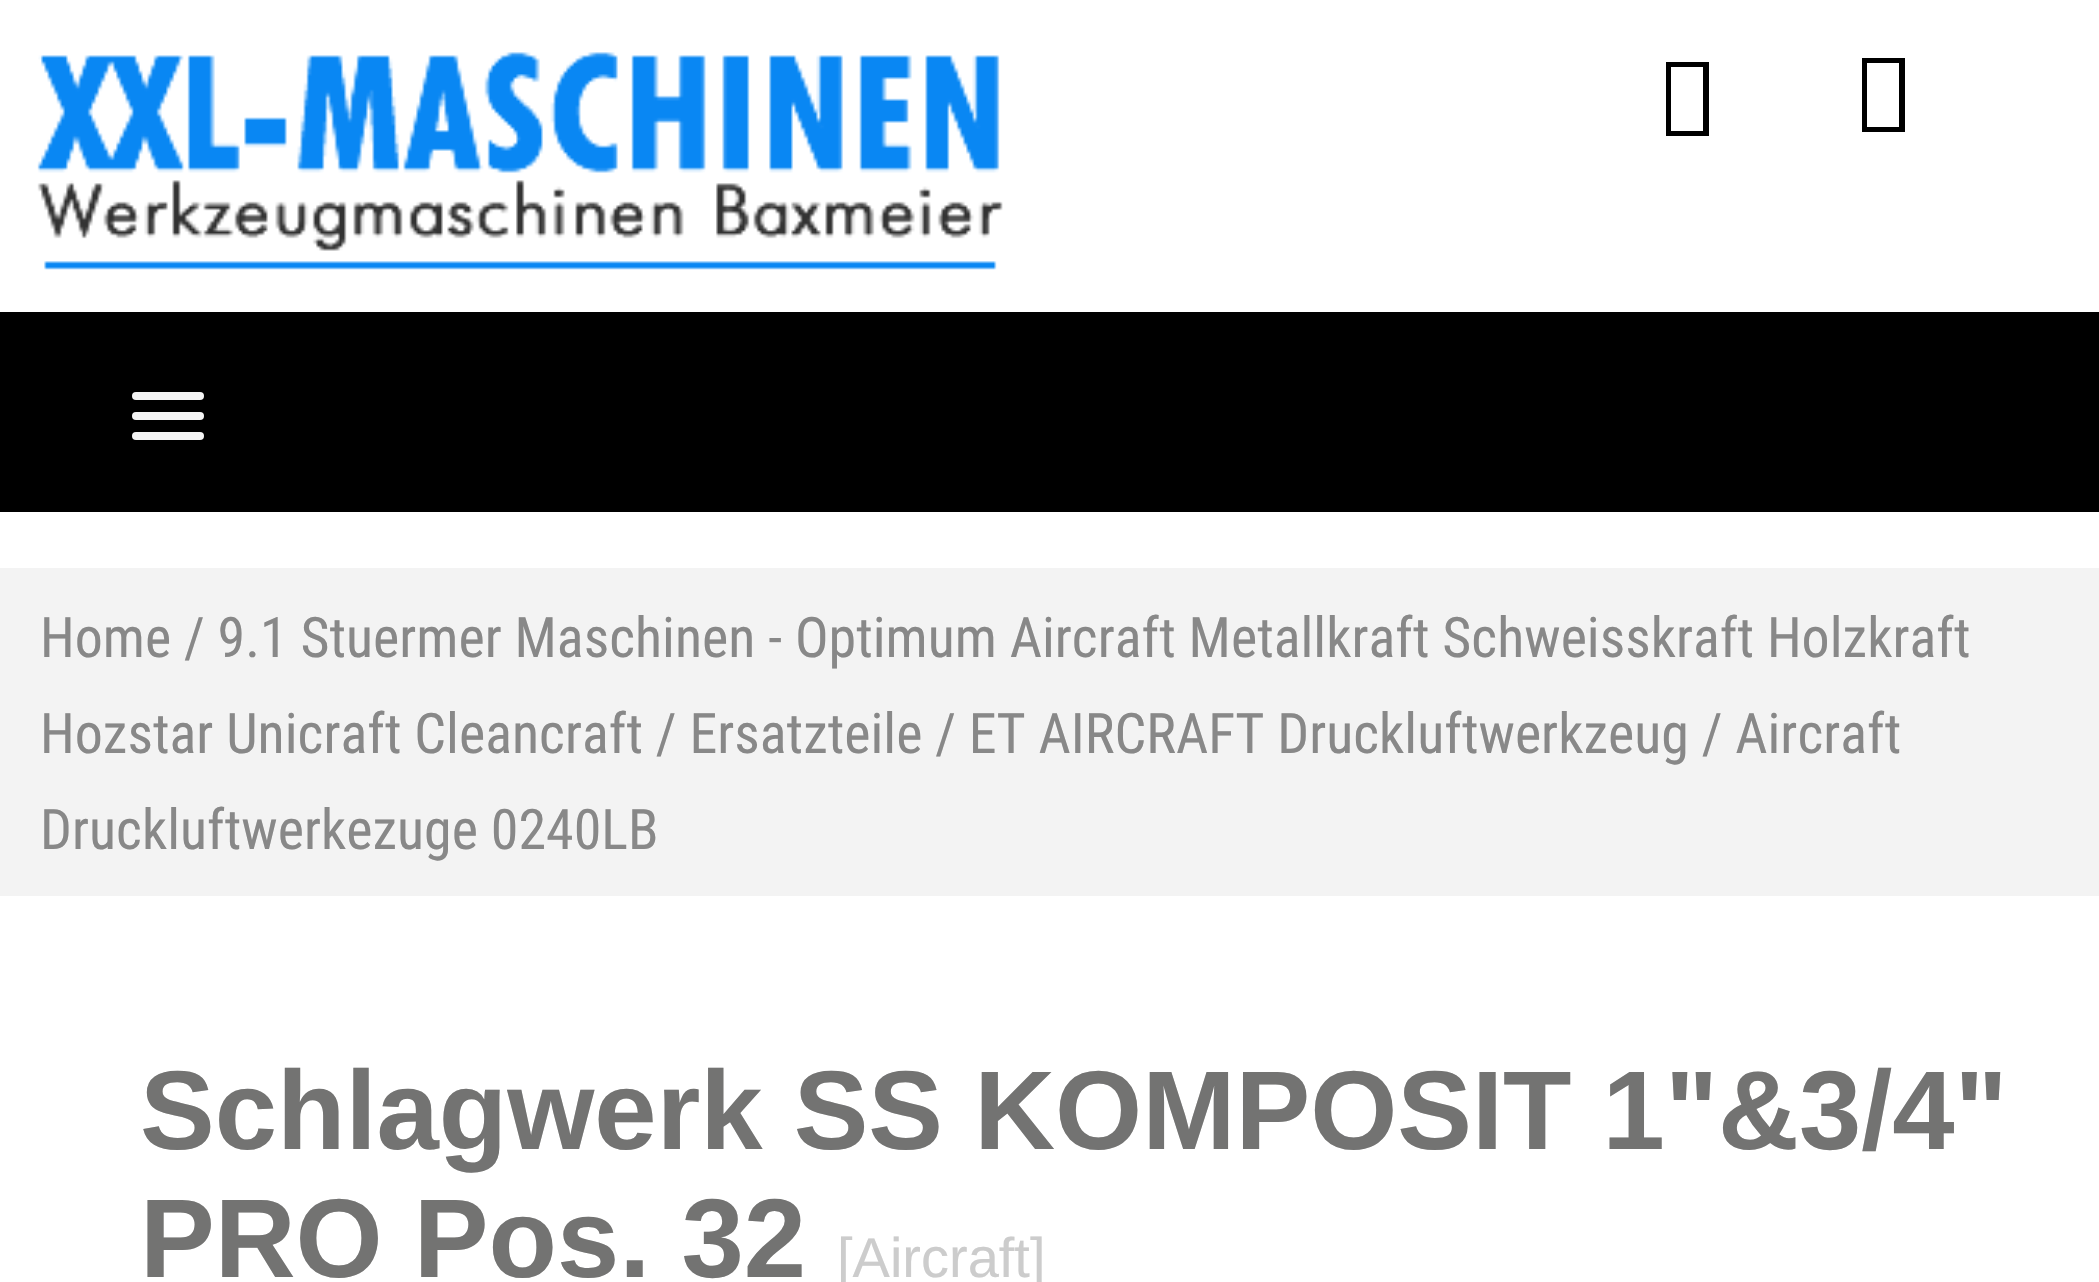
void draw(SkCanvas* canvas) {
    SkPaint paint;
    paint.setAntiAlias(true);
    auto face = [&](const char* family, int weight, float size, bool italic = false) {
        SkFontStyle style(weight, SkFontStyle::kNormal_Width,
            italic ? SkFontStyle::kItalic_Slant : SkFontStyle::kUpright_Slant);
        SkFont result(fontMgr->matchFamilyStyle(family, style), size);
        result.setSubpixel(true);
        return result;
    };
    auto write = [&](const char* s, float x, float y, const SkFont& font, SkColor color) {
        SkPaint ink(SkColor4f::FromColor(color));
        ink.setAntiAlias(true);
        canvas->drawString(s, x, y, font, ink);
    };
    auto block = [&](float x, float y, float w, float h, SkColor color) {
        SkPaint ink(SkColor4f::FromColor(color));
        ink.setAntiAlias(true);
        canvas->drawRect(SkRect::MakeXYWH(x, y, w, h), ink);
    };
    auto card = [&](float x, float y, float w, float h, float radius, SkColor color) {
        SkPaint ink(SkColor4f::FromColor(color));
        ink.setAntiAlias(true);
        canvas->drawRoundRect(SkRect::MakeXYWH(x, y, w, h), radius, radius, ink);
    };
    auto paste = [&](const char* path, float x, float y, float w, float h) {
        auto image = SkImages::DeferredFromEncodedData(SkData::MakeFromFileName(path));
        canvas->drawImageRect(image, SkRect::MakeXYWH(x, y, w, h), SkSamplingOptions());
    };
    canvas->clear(SK_ColorWHITE);
    paste("pic1.png", 37, 52, 966, 218);
    paint.setColor(SK_ColorBLACK);
    canvas->drawPath(SkPathBuilder().moveTo(1666, 136).lineTo(1666, 62).lineTo(1709, 62).lineTo(1709, 136).close().moveTo(1671, 131).lineTo(1703, 131).lineTo(1703, 67).lineTo(1671, 67).close().detach(), paint);
    canvas->drawPath(SkPathBuilder().moveTo(1862, 132).lineTo(1862, 58).lineTo(1905, 58).lineTo(1905, 132).close().moveTo(1867, 127).lineTo(1899, 127).lineTo(1899, 63).lineTo(1867, 63).close().detach(), paint);
    block(0, 312, 2099, 200, SK_ColorBLACK);
    card(132, 392, 72, 8, 4, SkColorSetRGB(245, 245, 245));
    card(132, 412, 72, 8, 4, SkColorSetRGB(245, 245, 245));
    card(132, 432, 72, 8, 4, SkColorSetRGB(245, 245, 245));
    block(0, 568, 2099, 328, SkColorSetRGB(243, 243, 243));
    auto kFont1 = face("Roboto Condensed", 400, 56);
    write("Home / 9.1 Stuermer Maschinen - Optimum Aircraft Metallkraft Schweisskraft Holzkraft", 40, 657, kFont1, SkColorSetRGB(136, 136, 136));
    write("Hozstar Unicraft Cleancraft / Ersatzteile / ET AIRCRAFT Druckluftwerkzeug / Aircraft", 40, 753, kFont1, SkColorSetRGB(136, 136, 136));
    write("Druckluftwerkezuge 0240LB", 40, 849, kFont1, SkColorSetRGB(136, 136, 136));
    auto kFont2 = face("Liberation Sans", 700, 112);
    write("Schlagwerk SS KOMPOSIT 1\"&3/4\"", 140, 1149, kFont2, SkColorSetRGB(115, 115, 114));
    write("PRO Pos. 32", 140, 1277, kFont2, SkColorSetRGB(115, 115, 114));
    auto kFont3 = face("Liberation Sans", 400, 56);
    write("[Aircraft]", 837, 1277, kFont3, SkColorSetRGB(204, 204, 204));
}
